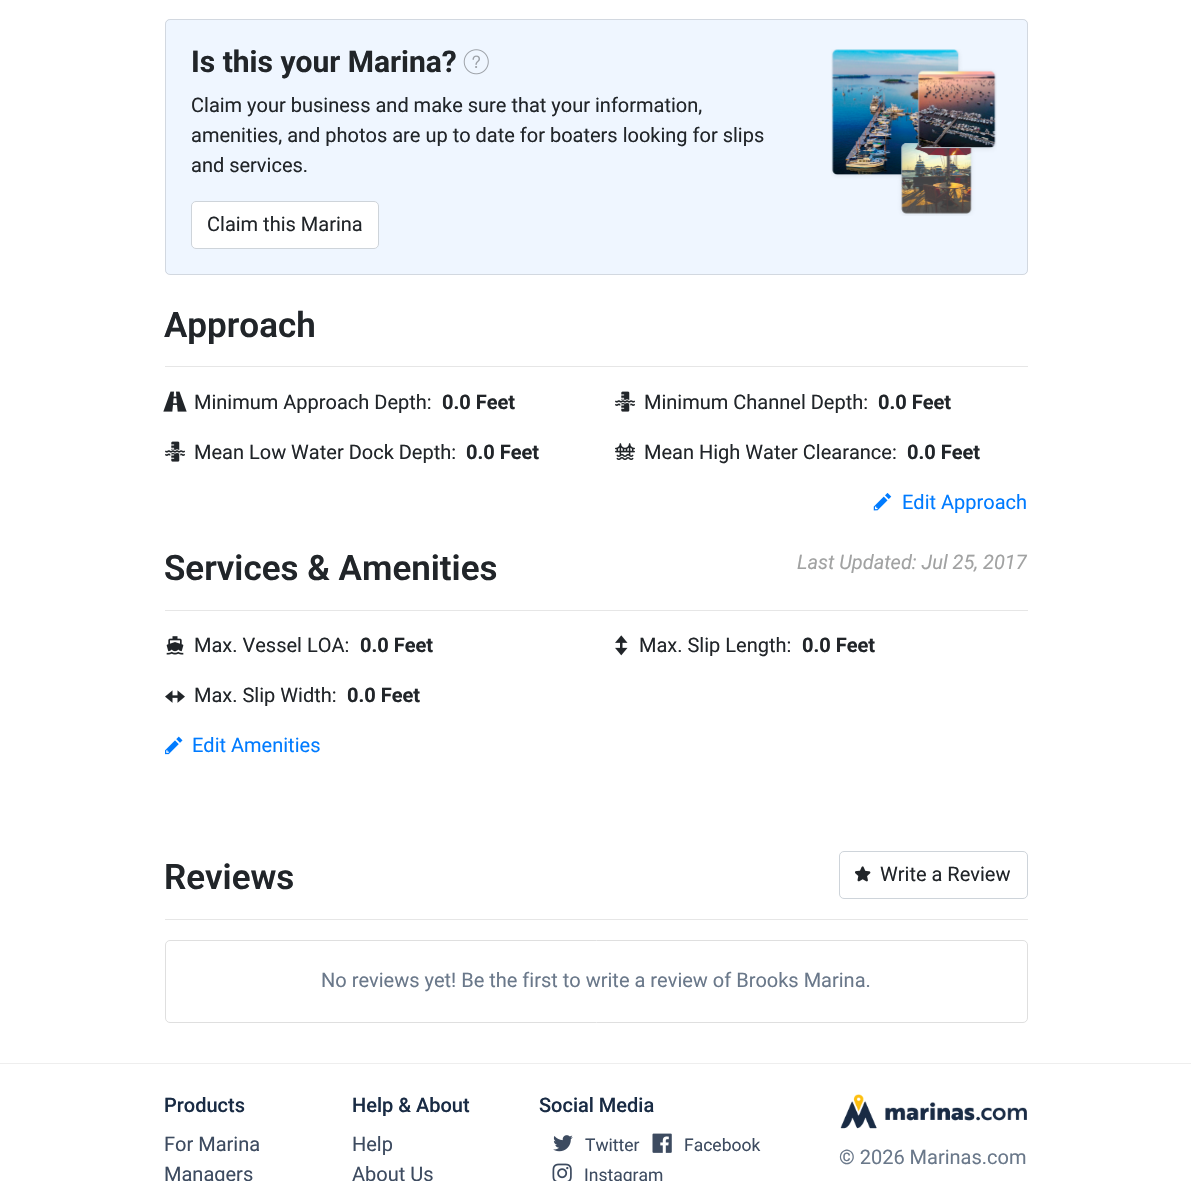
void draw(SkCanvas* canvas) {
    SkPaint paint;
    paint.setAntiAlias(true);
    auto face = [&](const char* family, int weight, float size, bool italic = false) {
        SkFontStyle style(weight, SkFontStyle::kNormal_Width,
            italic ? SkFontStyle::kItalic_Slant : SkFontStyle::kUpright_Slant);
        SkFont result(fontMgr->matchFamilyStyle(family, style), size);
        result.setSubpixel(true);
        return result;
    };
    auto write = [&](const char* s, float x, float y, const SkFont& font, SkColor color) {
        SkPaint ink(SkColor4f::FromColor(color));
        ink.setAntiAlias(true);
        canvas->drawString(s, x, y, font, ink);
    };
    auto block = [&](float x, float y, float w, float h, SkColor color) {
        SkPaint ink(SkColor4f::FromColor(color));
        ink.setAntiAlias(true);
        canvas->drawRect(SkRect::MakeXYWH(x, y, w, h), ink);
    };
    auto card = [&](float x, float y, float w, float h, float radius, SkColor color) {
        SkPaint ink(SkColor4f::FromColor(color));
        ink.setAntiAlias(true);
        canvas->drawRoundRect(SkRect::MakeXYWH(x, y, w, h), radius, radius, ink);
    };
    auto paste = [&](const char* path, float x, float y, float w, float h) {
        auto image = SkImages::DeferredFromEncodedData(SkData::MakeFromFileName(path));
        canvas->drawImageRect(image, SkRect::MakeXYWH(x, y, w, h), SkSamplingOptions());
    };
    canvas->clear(SK_ColorWHITE);
    card(165, 19, 863, 256, 5, SkColorSetRGB(239, 246, 255));
    paint.setStyle(SkPaint::kStroke_Style);
    paint.setStrokeWidth(1);
    paint.setColor(SkColorSetARGB(31, 0, 0, 0));
    canvas->drawRoundRect(SkRect::MakeXYWH(165.5f, 19.5f, 862, 255), 4.5f, 4.5f, paint);
    auto kFont1 = face("Roboto", 700, 30);
    write("Is this your Marina?", 191, 72, kFont1, SkColorSetRGB(33, 37, 41));
    paste("pic1.png", 463, 49, 26, 26);
    auto kFont2 = face("Roboto", 400, 20);
    write("Claim your business and make sure that your information,", 191, 112, kFont2, SkColorSetRGB(33, 37, 41));
    write("amenities, and photos are up to date for boaters looking for slips", 191, 142, kFont2, SkColorSetRGB(33, 37, 41));
    write("and services.", 191, 172, kFont2, SkColorSetRGB(33, 37, 41));
    paint.setStyle(SkPaint::kFill_Style);
    paint.setColor(SK_ColorWHITE);
    canvas->drawRoundRect(SkRect::MakeXYWH(191.5f, 201.5f, 187, 47), 4.5f, 4.5f, paint);
    paint.setStyle(SkPaint::kStroke_Style);
    paint.setColor(SkColorSetRGB(206, 212, 218));
    canvas->drawRoundRect(SkRect::MakeXYWH(191.5f, 201.5f, 187, 47), 4.5f, 4.5f, paint);
    write("Claim this Marina", 207, 231, kFont2, SkColorSetRGB(33, 37, 41));
    paste("pic2.png", 831, 49, 166, 167);
    auto kFont3 = face("Roboto", 600, 35);
    write("Approach", 164, 337, kFont3, SkColorSetRGB(33, 37, 41));
    block(165, 366, 863, 1, SkColorSetRGB(230, 230, 230));
    paste("pic3.png", 163, 391, 24, 21);
    write("Minimum Approach Depth:", 194, 409, kFont2, SkColorSetRGB(33, 37, 41));
    auto kFont4 = face("Roboto", 700, 20);
    write("0.0 Feet", 442, 409, kFont4, SkColorSetRGB(33, 37, 41));
    paste("pic4.png", 615, 391, 20, 21);
    write("Minimum Channel Depth:", 644, 409, kFont2, SkColorSetRGB(33, 37, 41));
    write("0.0 Feet", 878, 409, kFont4, SkColorSetRGB(33, 37, 41));
    paste("pic4.png", 165, 441, 20, 21);
    write("Mean Low Water Dock Depth:", 194, 459, kFont2, SkColorSetRGB(33, 37, 41));
    write("0.0 Feet", 466, 459, kFont4, SkColorSetRGB(33, 37, 41));
    paste("pic5.png", 615, 443, 20, 17);
    write("Mean High Water Clearance:", 644, 459, kFont2, SkColorSetRGB(33, 37, 41));
    write("0.0 Feet", 907, 459, kFont4, SkColorSetRGB(33, 37, 41));
    paste("pic6.png", 873, 493, 19, 18);
    write("Edit Approach", 902, 509, kFont2, SkColorSetRGB(0, 123, 255));
    write("Services & Amenities", 164, 580, kFont3, SkColorSetRGB(33, 37, 41));
    auto kFont5 = face("Roboto", 400, 20, true);
    write("Last Updated: Jul 25, 2017", 797, 569, kFont5, SkColorSetRGB(161, 162, 162));
    block(165, 610, 863, 1, SkColorSetRGB(230, 230, 230));
    paste("pic7.png", 166, 636, 18, 19);
    write("Max. Vessel LOA:", 194, 652, kFont2, SkColorSetRGB(33, 37, 41));
    write("0.0 Feet", 360, 652, kFont4, SkColorSetRGB(33, 37, 41));
    paste("pic8.png", 615, 635, 13, 21);
    write("Max. Slip Length:", 639, 652, kFont2, SkColorSetRGB(33, 37, 41));
    write("0.0 Feet", 802, 652, kFont4, SkColorSetRGB(33, 37, 41));
    paste("pic9.png", 165, 690, 20, 13);
    write("Max. Slip Width:", 194, 702, kFont2, SkColorSetRGB(33, 37, 41));
    write("0.0 Feet", 347, 702, kFont4, SkColorSetRGB(33, 37, 41));
    paste("pic10.png", 165, 736, 18, 19);
    write("Edit Amenities", 192, 752, kFont2, SkColorSetRGB(0, 123, 255));
    write("Reviews", 164, 889, kFont3, SkColorSetRGB(33, 37, 41));
    canvas->drawRoundRect(SkRect::MakeXYWH(839.5f, 851.5f, 188, 47), 4.5f, 4.5f, paint);
    paste("pic11.png", 855, 866, 16, 16);
    write("Write a Review", 880, 881, kFont2, SkColorSetRGB(33, 37, 41));
    block(165, 919, 863, 1, SkColorSetRGB(230, 230, 230));
    paint.setColor(SkColorSetRGB(223, 223, 223));
    canvas->drawRoundRect(SkRect::MakeXYWH(165.5f, 940.5f, 862, 82), 4.5f, 4.5f, paint);
    write("No reviews yet! Be the first to write a review of Brooks Marina.", 321, 987, kFont2, SkColorSetRGB(106, 120, 138));
    block(0, 1063, 1191, 1, SkColorSetRGB(238, 238, 238));
    auto kFont6 = face("Roboto", 500, 20);
    write("Products", 164, 1112, kFont6, SkColorSetRGB(25, 43, 68));
    write("For Marina", 164, 1151, kFont2, SkColorSetRGB(61, 75, 96));
    write("Managers", 164, 1181, kFont2, SkColorSetRGB(61, 75, 96));
    write("Help & About", 352, 1112, kFont6, SkColorSetRGB(25, 43, 68));
    write("Help", 352, 1151, kFont2, SkColorSetRGB(61, 75, 96));
    write("About Us", 352, 1181, kFont2, SkColorSetRGB(61, 75, 96));
    write("Social Media", 539, 1112, kFont6, SkColorSetRGB(25, 43, 68));
    paste("pic12.png", 553, 1135, 20, 17);
    auto kFont7 = face("Roboto", 400, 17.5f);
    write("Twitter", 585, 1151, kFont7, SkColorSetRGB(61, 75, 96));
    paste("pic13.png", 652, 1133, 20, 20);
    write("Facebook", 684, 1151, kFont7, SkColorSetRGB(61, 75, 96));
    paste("pic14.png", 552, 1163, 20, 18);
    write("Instagram", 584, 1181, kFont7, SkColorSetRGB(61, 75, 96));
    paste("pic15.png", 840, 1094, 187, 35);
    write("© 2026 Marinas.com", 839, 1164, kFont2, SkColorSetRGB(106, 120, 138));
}
